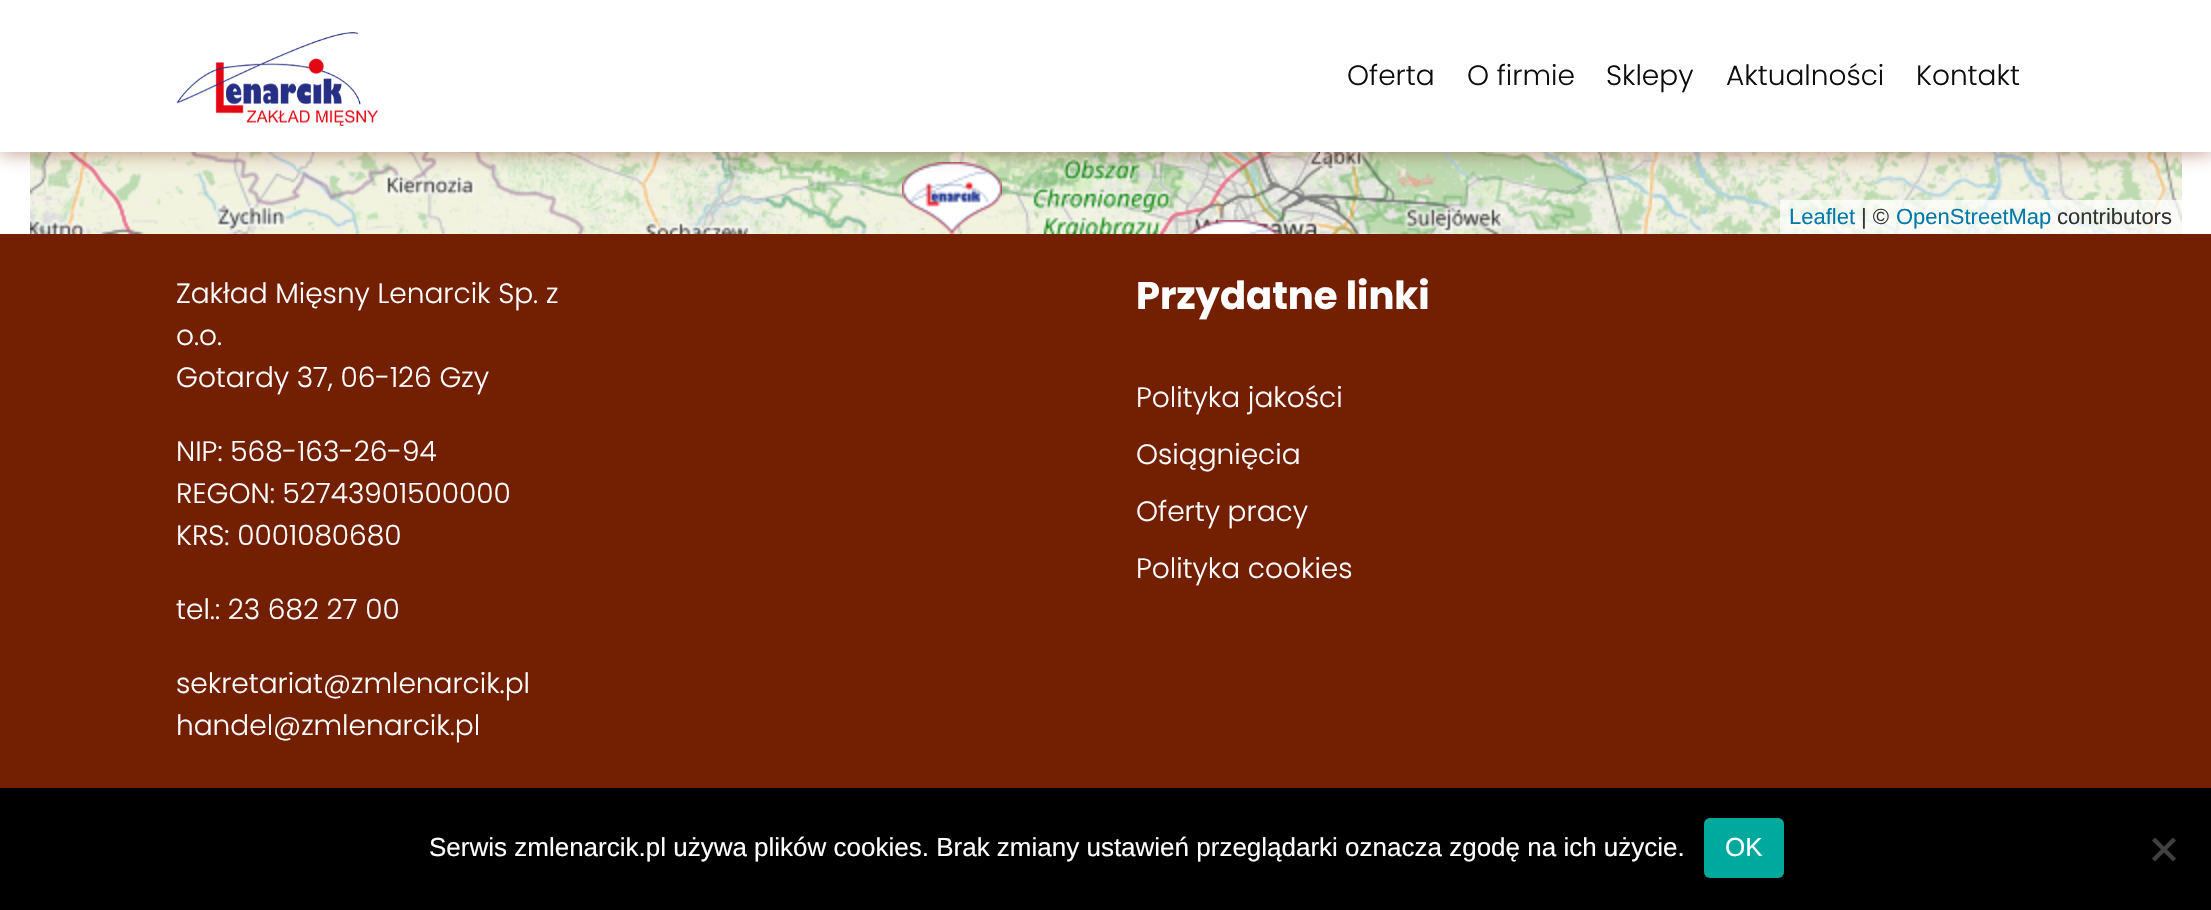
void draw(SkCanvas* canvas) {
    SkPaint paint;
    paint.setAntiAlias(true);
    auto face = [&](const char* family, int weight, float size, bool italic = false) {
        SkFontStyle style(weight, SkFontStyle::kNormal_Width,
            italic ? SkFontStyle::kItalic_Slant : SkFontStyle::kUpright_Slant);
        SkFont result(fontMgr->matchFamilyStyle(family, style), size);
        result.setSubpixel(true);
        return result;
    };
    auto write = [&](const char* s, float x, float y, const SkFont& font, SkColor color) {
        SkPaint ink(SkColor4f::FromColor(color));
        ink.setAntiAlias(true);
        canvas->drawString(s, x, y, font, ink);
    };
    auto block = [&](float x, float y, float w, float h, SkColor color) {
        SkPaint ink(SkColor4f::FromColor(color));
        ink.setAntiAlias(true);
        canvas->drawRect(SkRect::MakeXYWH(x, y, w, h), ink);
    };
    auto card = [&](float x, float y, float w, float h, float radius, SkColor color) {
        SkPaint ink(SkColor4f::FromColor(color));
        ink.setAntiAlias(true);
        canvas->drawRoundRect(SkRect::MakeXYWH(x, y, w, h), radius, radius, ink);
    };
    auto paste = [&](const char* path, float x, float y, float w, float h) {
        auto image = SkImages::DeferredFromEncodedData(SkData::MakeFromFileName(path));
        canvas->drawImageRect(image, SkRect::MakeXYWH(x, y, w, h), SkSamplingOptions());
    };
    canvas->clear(SK_ColorWHITE);
    paste("pic2.png", 30, 152, 266, 82);
    paste("pic3.png", 296, 152, 512, 82);
    paste("pic4.png", 808, 152, 512, 82);
    paste("pic5.png", 1320, 152, 512, 82);
    paste("pic6.png", 1832, 152, 350, 82);
    paste("pic7.png", 902, 162, 100, 72);
    paint.setColor(SkColorSetARGB(128, 115, 32, 2));
    paint.setMaskFilter(SkMaskFilter::MakeBlur(kNormal_SkBlurStyle, 10));
    canvas->drawRect(SkRect::MakeXYWH(0, 0, 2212, 152), paint);
    paint.setMaskFilter(nullptr);
    block(0, 0, 2211, 152, SK_ColorWHITE);
    paste("pic1.png", 176, 32, 202, 94);
    auto kFont1 = face("Poppins", 300, 28);
    write("Oferta", 1347, 85, kFont1, SkColorSetRGB(13, 13, 13));
    write("O firmie", 1467, 85, kFont1, SkColorSetRGB(13, 13, 13));
    write("Sklepy", 1606, 85, kFont1, SkColorSetRGB(13, 13, 13));
    write("Aktualności", 1726, 85, kFont1, SkColorSetRGB(13, 13, 13));
    write("Kontakt", 1916, 85, kFont1, SkColorSetRGB(13, 13, 13));
    paste("pic8.png", 1187, 220, 93, 14);
    block(1780, 200, 402, 34, SkColorSetARGB(179, 255, 255, 255));
    auto kFont2 = face("Liberation Sans", 400, 22);
    write("Leaflet", 1789, 224, kFont2, SkColorSetRGB(0, 120, 168));
    write("| ©", 1861, 224, kFont2, SkColorSetRGB(51, 51, 51));
    write("OpenStreetMap", 1896, 224, kFont2, SkColorSetRGB(0, 120, 168));
    write("contributors", 2057, 224, kFont2, SkColorSetRGB(51, 51, 51));
    block(0, 234, 2211, 554, SkColorSetRGB(115, 32, 2));
    write("Zakład Mięsny Lenarcik Sp. z", 176, 303, kFont1, SK_ColorWHITE);
    write("o.o.", 176, 345, kFont1, SK_ColorWHITE);
    write("Gotardy 37, 06-126 Gzy", 176, 387, kFont1, SK_ColorWHITE);
    write("NIP: 568-163-26-94", 176, 461, kFont1, SK_ColorWHITE);
    write("REGON: 52743901500000", 176, 503, kFont1, SK_ColorWHITE);
    write("KRS: 0001080680", 176, 545, kFont1, SK_ColorWHITE);
    write("tel.: 23 682 27 00", 176, 619, kFont1, SK_ColorWHITE);
    write("sekretariat@zmlenarcik.pl", 176, 693, kFont1, SK_ColorWHITE);
    write("handel@zmlenarcik.pl", 176, 735, kFont1, SK_ColorWHITE);
    auto kFont3 = face("Poppins", 700, 38.5f);
    write("Przydatne linki", 1136, 309, kFont3, SK_ColorWHITE);
    write("Polityka jakości", 1136, 407, kFont1, SK_ColorWHITE);
    write("Osiągnięcia", 1136, 464, kFont1, SK_ColorWHITE);
    write("Oferty pracy", 1136, 521, kFont1, SK_ColorWHITE);
    write("Polityka cookies", 1136, 578, kFont1, SK_ColorWHITE);
    block(0, 788, 2211, 122, SK_ColorBLACK);
    auto kFont4 = face("Liberation Sans", 400, 26);
    write("Serwis zmlenarcik.pl używa plików cookies. Brak zmiany ustawień przeglądarki oznacza zgodę na ich użycie.", 429, 856, kFont4, SK_ColorWHITE);
    card(1704, 818, 80, 60, 6, SkColorSetRGB(0, 169, 157));
    write("OK", 1725, 856, kFont4, SK_ColorWHITE);
    paint.setColor(SkColorSetRGB(64, 64, 64));
    canvas->drawPath(SkPathBuilder().moveTo(2173, 837.5f).lineTo(2176, 840.5f).lineTo(2155, 861.5f).lineTo(2152, 858.5f).close().detach(), paint);
    canvas->drawPath(SkPathBuilder().moveTo(2152, 840.5f).lineTo(2155, 837.5f).lineTo(2176, 858.5f).lineTo(2173, 861.5f).close().detach(), paint);
}
